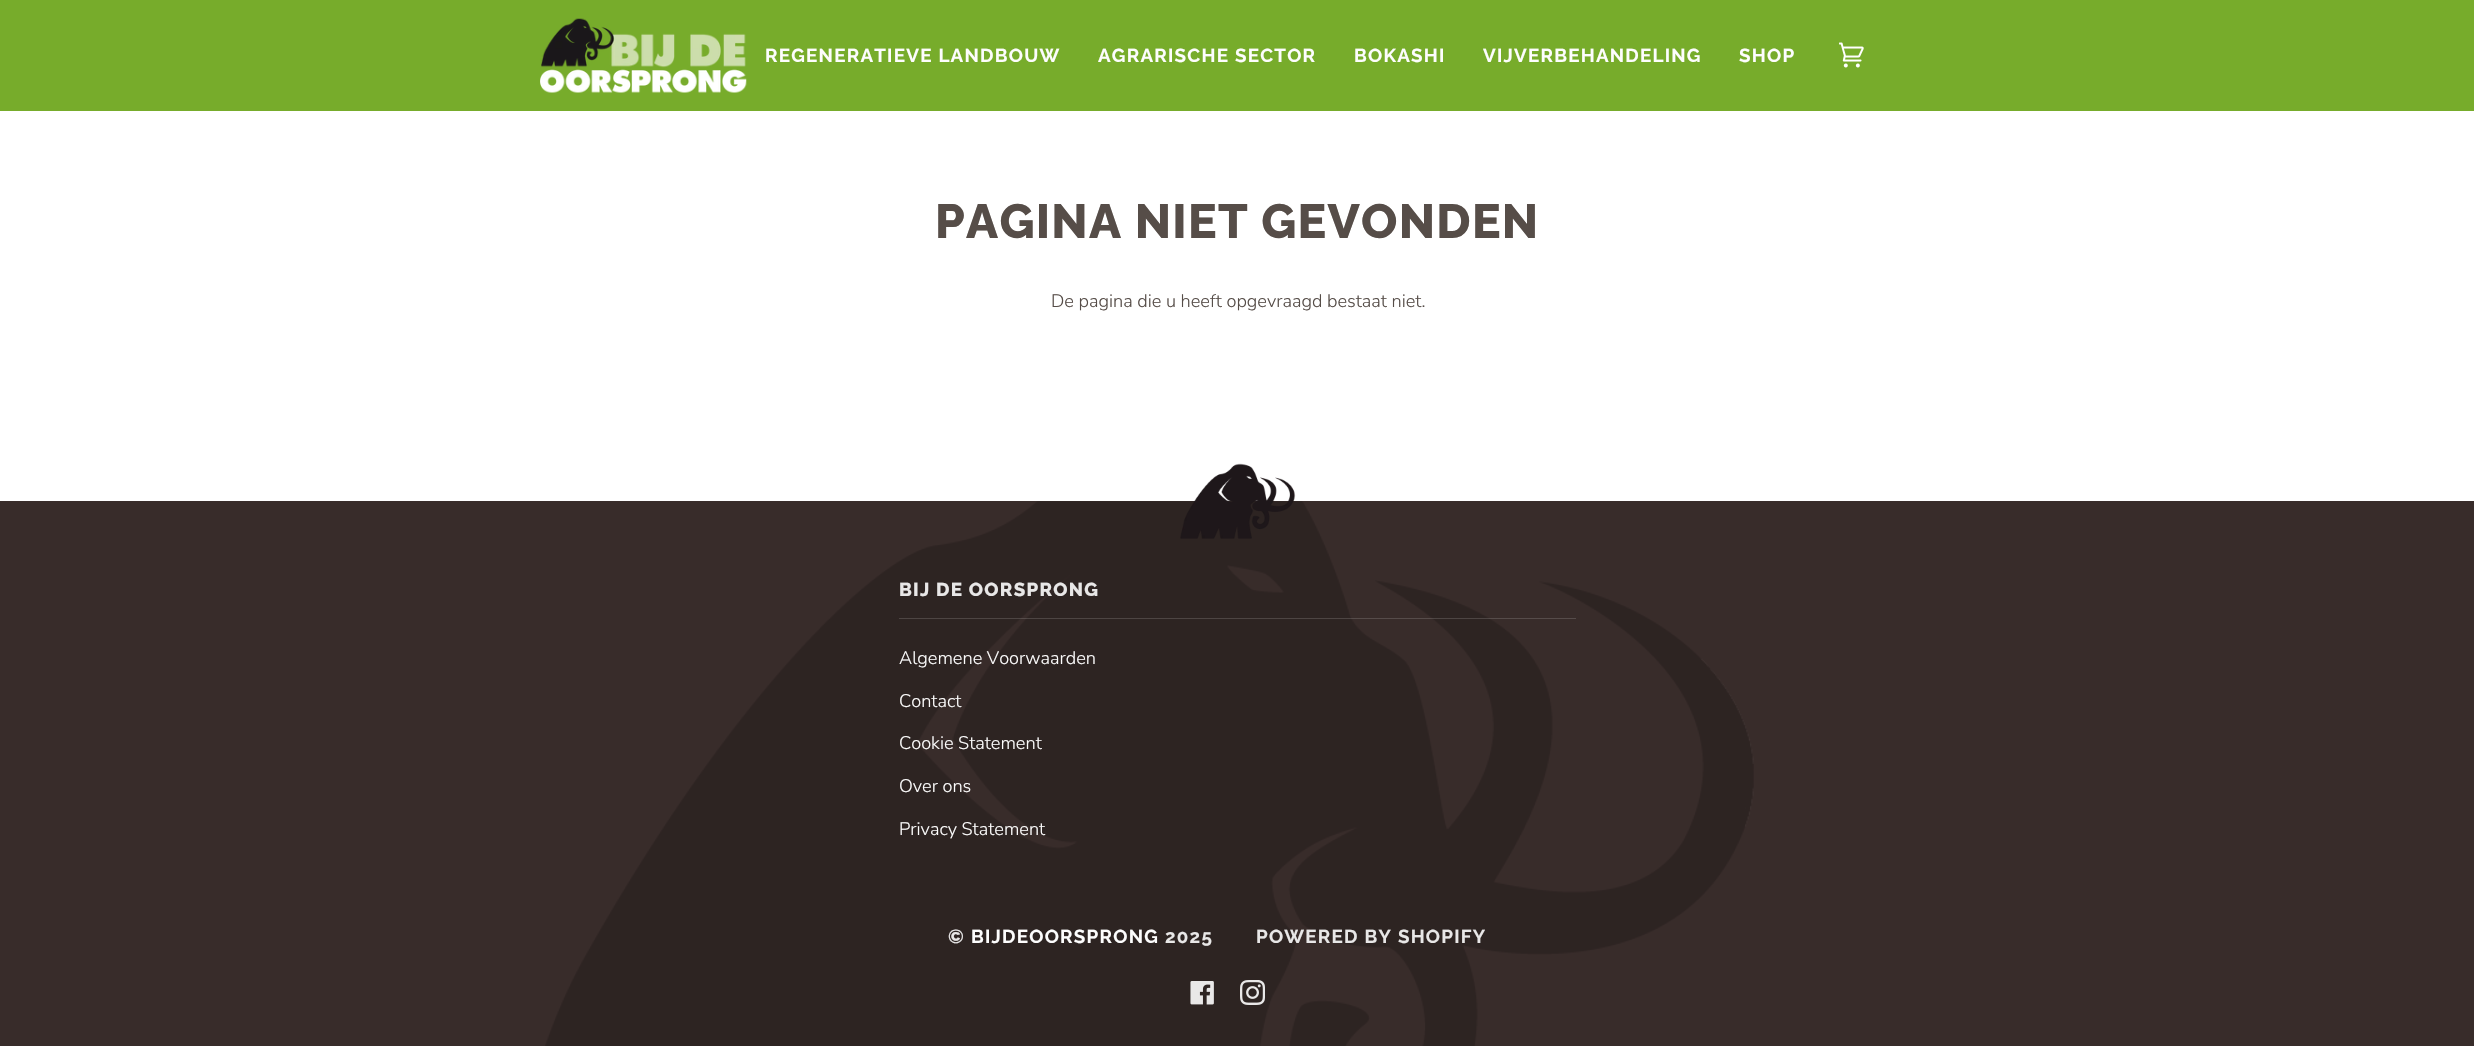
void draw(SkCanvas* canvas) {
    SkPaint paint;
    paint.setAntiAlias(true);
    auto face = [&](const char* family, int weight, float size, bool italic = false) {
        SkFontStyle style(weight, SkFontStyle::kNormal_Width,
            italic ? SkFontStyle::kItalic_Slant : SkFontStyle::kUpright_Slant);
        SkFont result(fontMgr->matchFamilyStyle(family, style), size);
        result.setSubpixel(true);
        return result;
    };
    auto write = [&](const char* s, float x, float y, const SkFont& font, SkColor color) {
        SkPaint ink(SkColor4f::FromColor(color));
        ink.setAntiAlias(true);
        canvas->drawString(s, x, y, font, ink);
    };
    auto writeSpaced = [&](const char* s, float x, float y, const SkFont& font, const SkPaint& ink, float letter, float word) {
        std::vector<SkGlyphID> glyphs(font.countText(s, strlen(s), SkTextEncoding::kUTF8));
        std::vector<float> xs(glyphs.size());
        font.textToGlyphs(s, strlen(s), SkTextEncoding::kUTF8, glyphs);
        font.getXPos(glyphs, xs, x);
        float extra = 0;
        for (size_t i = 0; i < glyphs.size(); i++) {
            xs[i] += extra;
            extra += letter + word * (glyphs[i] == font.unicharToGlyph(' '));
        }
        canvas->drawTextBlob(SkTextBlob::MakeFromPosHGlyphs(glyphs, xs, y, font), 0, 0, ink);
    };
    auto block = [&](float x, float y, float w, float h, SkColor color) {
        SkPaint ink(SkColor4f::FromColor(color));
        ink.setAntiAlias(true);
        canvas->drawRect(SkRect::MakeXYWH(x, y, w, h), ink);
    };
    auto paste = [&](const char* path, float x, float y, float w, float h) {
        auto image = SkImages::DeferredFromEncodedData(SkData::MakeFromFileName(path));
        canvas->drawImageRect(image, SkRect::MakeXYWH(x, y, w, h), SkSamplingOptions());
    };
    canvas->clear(SK_ColorWHITE);
    block(0, 0, 2474, 111, SkColorSetRGB(119, 172, 43));
    paste("pic1.png", 540, 18, 207, 75);
    auto kFont1 = face("Raleway", 700, 18.75f);
    paint.setColor(SkColorSetRGB(253, 253, 253));
    writeSpaced("REGENERATIEVE LANDBOUW", 765, 62, kFont1, paint, 1.25f, 0);
    writeSpaced("AGRARISCHE SECTOR", 1098, 62, kFont1, paint, 1.25f, 0);
    writeSpaced("BOKASHI", 1354, 62, kFont1, paint, 1.25f, 0);
    writeSpaced("VIJVERBEHANDELING", 1483, 62, kFont1, paint, 1.25f, 0);
    writeSpaced("SHOP", 1739, 62, kFont1, paint, 1.25f, 0);
    paste("pic2.png", 1839, 42, 25, 26);
    auto kFont2 = face("Raleway", 800, 47.9f);
    paint.setColor(SkColorSetRGB(86, 77, 72));
    writeSpaced("PAGINA NIET GEVONDEN", 935, 238, kFont2, paint, 1.25f, 0);
    auto kFont3 = face("Nunito Sans", 300, 18.2f);
    write("De pagina die u heeft opgevraagd bestaat niet.", 1051, 307, kFont3, SkColorSetRGB(86, 77, 72));
    block(0, 501, 2474, 545, SkColorSetRGB(56, 44, 42));
    paste("pic4.png", 545, 501, 1209, 545);
    paste("pic3.png", 1180, 463, 116, 76);
    block(899, 618, 677, 1, SkColorSetARGB(38, 253, 253, 253));
    auto kFont4 = face("Raleway", 800, 18.75f);
    paint.setColor(SkColorSetRGB(232, 231, 231));
    writeSpaced("BIJ DE OORSPRONG", 899, 596, kFont4, paint, 1.25f, 0);
    write("Algemene Voorwaarden", 899, 664, kFont3, SkColorSetRGB(253, 253, 253));
    write("Contact", 899, 707, kFont3, SkColorSetRGB(253, 253, 253));
    write("Cookie Statement", 899, 749, kFont3, SkColorSetRGB(253, 253, 253));
    write("Over ons", 899, 792, kFont3, SkColorSetRGB(253, 253, 253));
    write("Privacy Statement", 899, 835, kFont3, SkColorSetRGB(253, 253, 253));
    writeSpaced("©", 948, 943, kFont1, paint, 1.25f, 0);
    paint.setColor(SkColorSetRGB(253, 253, 253));
    writeSpaced("BIJDEOORSPRONG", 971, 943, kFont1, paint, 1.25f, 0);
    paint.setColor(SkColorSetRGB(232, 231, 231));
    writeSpaced("2025", 1165, 943, kFont1, paint, 1.25f, 0);
    writeSpaced("POWERED BY SHOPIFY", 1256, 943, kFont1, paint, 1.25f, 0);
    paste("pic5.png", 1190, 981, 24, 24);
    paste("pic6.png", 1240, 980, 25, 25);
}
